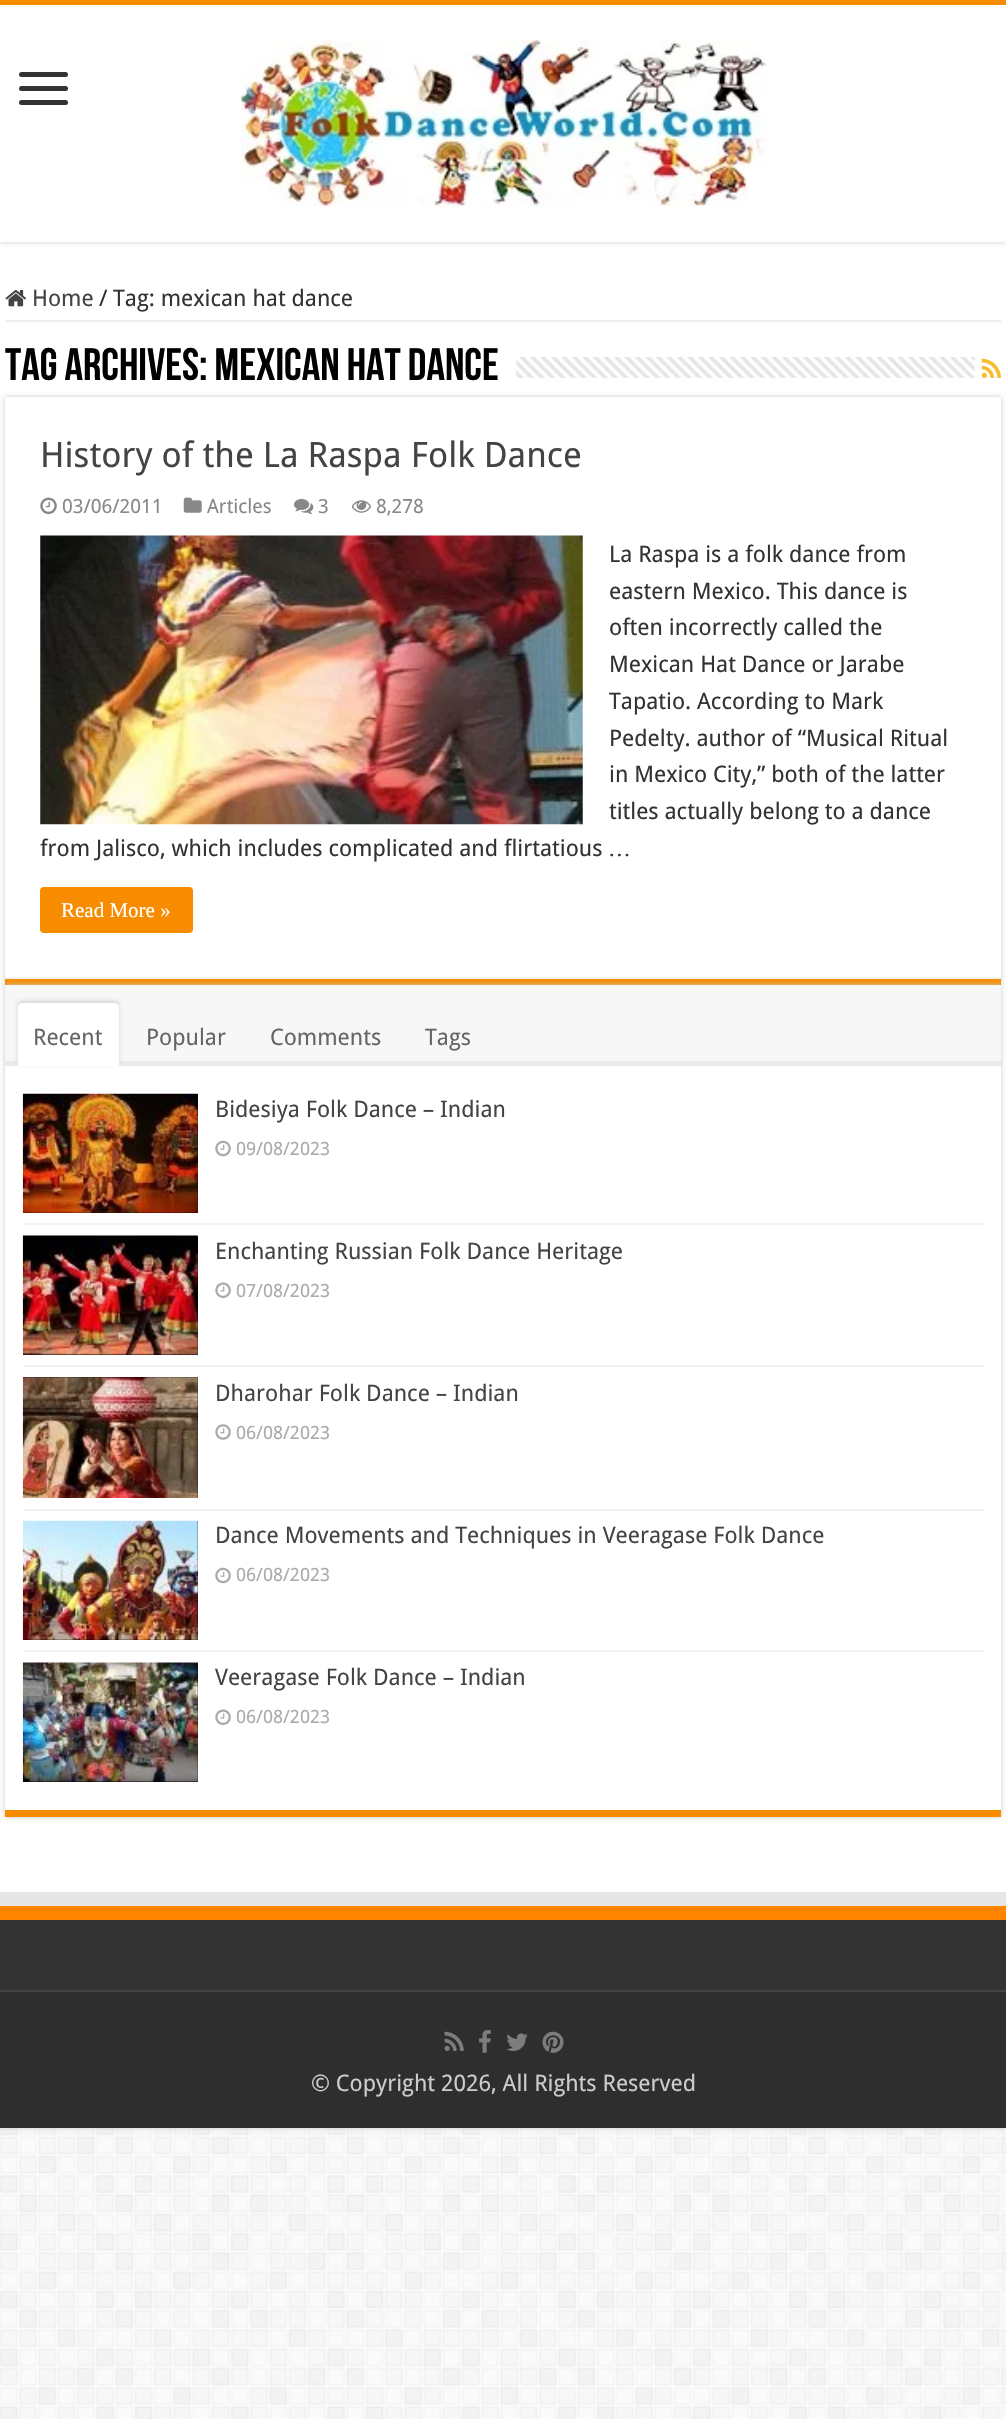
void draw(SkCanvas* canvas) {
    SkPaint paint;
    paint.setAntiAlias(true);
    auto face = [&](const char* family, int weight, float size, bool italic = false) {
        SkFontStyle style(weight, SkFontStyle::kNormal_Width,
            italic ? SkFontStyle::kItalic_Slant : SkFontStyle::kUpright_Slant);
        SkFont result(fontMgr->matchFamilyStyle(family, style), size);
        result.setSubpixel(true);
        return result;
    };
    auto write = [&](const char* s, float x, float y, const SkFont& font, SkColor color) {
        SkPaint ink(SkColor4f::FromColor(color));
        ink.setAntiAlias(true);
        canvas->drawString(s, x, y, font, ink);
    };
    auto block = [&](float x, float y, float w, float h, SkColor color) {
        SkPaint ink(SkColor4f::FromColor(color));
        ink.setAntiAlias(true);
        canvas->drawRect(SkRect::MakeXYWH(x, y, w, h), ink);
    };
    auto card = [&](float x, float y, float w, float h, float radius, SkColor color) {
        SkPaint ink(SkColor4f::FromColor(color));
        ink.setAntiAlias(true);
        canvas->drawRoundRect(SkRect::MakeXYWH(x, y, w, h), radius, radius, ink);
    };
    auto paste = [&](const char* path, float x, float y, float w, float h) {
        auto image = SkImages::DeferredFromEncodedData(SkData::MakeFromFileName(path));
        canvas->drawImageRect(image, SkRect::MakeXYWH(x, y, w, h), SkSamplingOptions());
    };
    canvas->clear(SK_ColorWHITE);
    paste("pic1.png", 0, 2128, 1006, 291);
    paint.setColor(SkColorSetRGB(202, 202, 202));
    paint.setMaskFilter(SkMaskFilter::MakeBlur(kNormal_SkBlurStyle, 2.5f));
    canvas->drawRect(SkRect::MakeXYWH(0, 0, 1006, 2128), paint);
    paint.setMaskFilter(nullptr);
    block(0, 242, 1006, 1650, SK_ColorWHITE);
    paint.setMaskFilter(SkMaskFilter::MakeBlur(kNormal_SkBlurStyle, 2.5f));
    canvas->drawRect(SkRect::MakeXYWH(0, 0, 1006, 242), paint);
    paint.setMaskFilter(nullptr);
    block(0, 5, 1006, 237, SK_ColorWHITE);
    block(0, 0, 1006, 5, SkColorSetRGB(248, 140, 0));
    card(19, 72, 49, 5, 2.5f, SkColorSetRGB(51, 51, 51));
    card(19, 86, 49, 5, 2.5f, SkColorSetRGB(51, 51, 51));
    card(19, 100, 49, 5, 2.5f, SkColorSetRGB(51, 51, 51));
    paste("pic2.png", 241, 40, 526, 167);
    block(5, 320, 996, 2, SkColorSetRGB(238, 238, 238));
    paste("pic3.png", 5, 290, 21, 17);
    auto kFont1 = face("Droid Sans", 400, 22.75f);
    write("Home", 32, 306, kFont1, SkColorSetRGB(68, 68, 68));
    write("/", 99, 306, kFont1, SkColorSetRGB(51, 51, 51));
    write("Tag: mexican hat dance", 113, 306, kFont1, SkColorSetRGB(51, 51, 51));
    auto kFont2 = face("Bebas Neue", 700, 45.5f);
    write("Tag Archives: mexican hat dance", 5, 380, kFont2, SK_ColorBLACK);
    paste("pic4.png", 516, 357, 459, 21);
    paste("pic5.png", 981, 358, 20, 20);
    paint.setMaskFilter(SkMaskFilter::MakeBlur(kNormal_SkBlurStyle, 2.5f));
    canvas->drawRect(SkRect::MakeXYWH(5, 397, 996, 588), paint);
    paint.setMaskFilter(nullptr);
    block(5, 397, 996, 580, SK_ColorWHITE);
    block(5, 979, 996, 6, SkColorSetRGB(248, 140, 0));
    block(5, 977, 996, 2, SkColorSetRGB(242, 242, 242));
    auto kFont3 = face("Droid Sans", 400, 35);
    write("History of the La Raspa Folk Dance", 40, 467, kFont3, SkColorSetRGB(68, 68, 68));
    paste("pic6.png", 40, 497, 17, 18);
    auto kFont4 = face("Droid Sans", 400, 19.5f);
    write("03/06/2011", 62, 513, kFont4, SkColorSetRGB(136, 136, 136));
    paste("pic7.png", 183, 497, 19, 16);
    write("Articles", 207, 513, kFont4, SkColorSetRGB(136, 136, 136));
    paste("pic8.png", 294, 498, 20, 17);
    write("3", 318, 513, kFont4, SkColorSetRGB(136, 136, 136));
    paste("pic9.png", 351, 500, 20, 13);
    write("8,278", 376, 513, kFont4, SkColorSetRGB(136, 136, 136));
    paste("pic10.png", 40, 535, 543, 290);
    write("La Raspa is a folk dance from", 609, 562, kFont1, SkColorSetRGB(51, 51, 51));
    write("eastern Mexico. This dance is", 609, 599, kFont1, SkColorSetRGB(51, 51, 51));
    write("often incorrectly called the", 609, 635, kFont1, SkColorSetRGB(51, 51, 51));
    write("Mexican Hat Dance or Jarabe", 609, 672, kFont1, SkColorSetRGB(51, 51, 51));
    write("Tapatio. According to Mark", 609, 709, kFont1, SkColorSetRGB(51, 51, 51));
    write("Pedelty. author of “Musical Ritual", 609, 746, kFont1, SkColorSetRGB(51, 51, 51));
    write("in Mexico City,” both of the latter", 609, 782, kFont1, SkColorSetRGB(51, 51, 51));
    write("titles actually belong to a dance", 609, 819, kFont1, SkColorSetRGB(51, 51, 51));
    write("from Jalisco, which includes complicated and flirtatious", 40, 856, kFont1, SkColorSetRGB(51, 51, 51));
    auto kFont5 = face("Liberation Serif", 400, 22.75f);
    write("…", 608, 856, kFont5, SkColorSetRGB(51, 51, 51));
    card(40, 887, 153, 46, 4, SkColorSetRGB(248, 140, 0));
    auto kFont6 = face("Liberation Serif", 400, 21);
    write("Read More »", 61, 917, kFont6, SK_ColorWHITE);
    paint.setMaskFilter(SkMaskFilter::MakeBlur(kNormal_SkBlurStyle, 2.5f));
    canvas->drawRect(SkRect::MakeXYWH(5, 985, 996, 832), paint);
    paint.setMaskFilter(nullptr);
    block(5, 1066, 996, 744, SK_ColorWHITE);
    block(5, 1810, 996, 7, SkColorSetRGB(248, 140, 0));
    block(5, 985, 996, 76, SkColorSetRGB(247, 247, 247));
    block(5, 1061, 996, 5, SkColorSetRGB(234, 234, 234));
    paint.setColor(SkColorSetRGB(212, 212, 212));
    paint.setMaskFilter(SkMaskFilter::MakeBlur(kNormal_SkBlurStyle, 2));
    canvas->drawRoundRect(SkRect::MakeXYWH(18, 1001, 101, 63), 4, 4, paint);
    paint.setMaskFilter(nullptr);
    paint.setColor(SK_ColorWHITE);
    canvas->drawPath(SkPathBuilder().moveTo(22, 1003).lineTo(115, 1003).cubicTo(117, 1003, 119, 1005, 119, 1007).lineTo(119, 1066).lineTo(18, 1066).lineTo(18, 1007).cubicTo(18, 1005, 20, 1003, 22, 1003).close().detach(), paint);
    write("Recent", 33, 1045, kFont1, SkColorSetRGB(102, 102, 102));
    write("Popular", 146, 1045, kFont1, SkColorSetRGB(102, 102, 102));
    write("Comments", 270, 1045, kFont1, SkColorSetRGB(102, 102, 102));
    write("Tags", 425, 1045, kFont1, SkColorSetRGB(102, 102, 102));
    block(23, 1223, 961, 2, SkColorSetRGB(242, 242, 242));
    block(23, 1094, 175, 119, SK_ColorBLACK);
    paste("pic11.png", 22, 1093, 176, 120);
    write("Bidesiya Folk Dance – Indian", 215, 1117, kFont1, SkColorSetRGB(68, 68, 68));
    paste("pic12.png", 215, 1140, 16, 17);
    auto kFont7 = face("Droid Sans", 400, 18.25f);
    write("09/08/2023", 236, 1155, kFont7, SkColorSetRGB(170, 170, 170));
    block(23, 1365, 961, 2, SkColorSetRGB(242, 242, 242));
    block(23, 1236, 175, 119, SK_ColorBLACK);
    paste("pic13.png", 22, 1235, 176, 120);
    write("Enchanting Russian Folk Dance Heritage", 215, 1259, kFont1, SkColorSetRGB(68, 68, 68));
    paste("pic14.png", 215, 1282, 16, 16);
    write("07/08/2023", 236, 1297, kFont7, SkColorSetRGB(170, 170, 170));
    block(23, 1509, 961, 2, SkColorSetRGB(242, 242, 242));
    block(23, 1377, 175, 121, SK_ColorBLACK);
    paste("pic15.png", 22, 1377, 176, 121);
    write("Dharohar Folk Dance – Indian", 215, 1401, kFont1, SkColorSetRGB(68, 68, 68));
    paste("pic16.png", 215, 1424, 16, 16);
    write("06/08/2023", 236, 1439, kFont7, SkColorSetRGB(170, 170, 170));
    block(23, 1650, 961, 2, SkColorSetRGB(242, 242, 242));
    block(23, 1521, 175, 119, SK_ColorBLACK);
    paste("pic17.png", 22, 1520, 176, 120);
    write("Dance Movements and Techniques in Veeragase Folk Dance", 215, 1543, kFont1, SkColorSetRGB(68, 68, 68));
    paste("pic12.png", 215, 1567, 16, 17);
    write("06/08/2023", 236, 1581, kFont7, SkColorSetRGB(170, 170, 170));
    block(23, 1663, 175, 119, SK_ColorBLACK);
    paste("pic18.png", 22, 1662, 176, 120);
    write("Veeragase Folk Dance – Indian", 215, 1685, kFont1, SkColorSetRGB(68, 68, 68));
    paste("pic14.png", 215, 1709, 16, 16);
    write("06/08/2023", 236, 1723, kFont7, SkColorSetRGB(170, 170, 170));
    block(0, 1892, 1006, 14, SkColorSetRGB(230, 230, 230));
    block(0, 1920, 1006, 70, SkColorSetRGB(51, 51, 51));
    block(0, 1906, 1006, 14, SkColorSetRGB(255, 133, 0));
    block(0, 1992, 1006, 136, SkColorSetRGB(46, 46, 46));
    block(0, 1990, 1006, 2, SkColorSetRGB(68, 68, 68));
    paste("pic19.png", 444, 2031, 20, 20);
    paste("pic20.png", 479, 2030, 12, 23);
    paste("pic21.png", 506, 2033, 22, 18);
    paste("pic22.png", 542, 2031, 22, 22);
    write("© Copyright 2026, All Rights Reserved", 311, 2091, kFont1, SkColorSetRGB(204, 204, 204));
}
